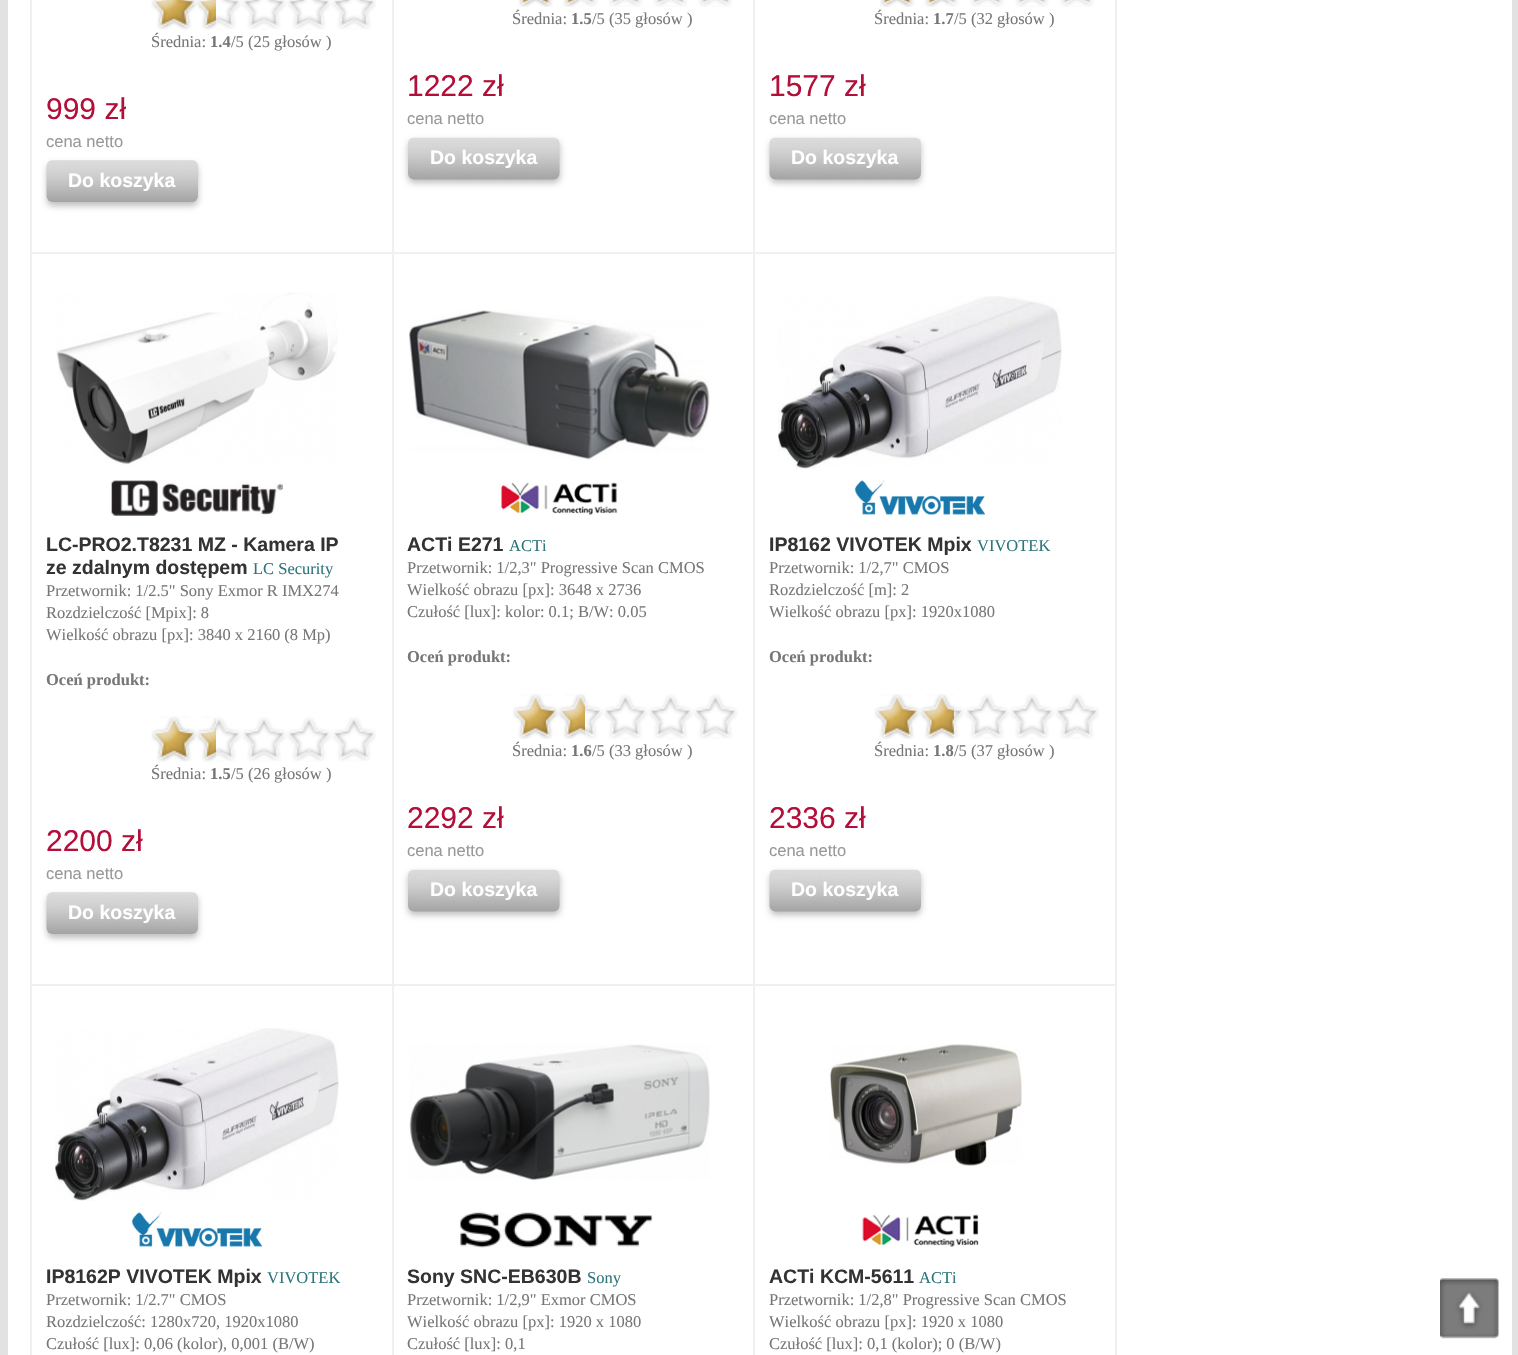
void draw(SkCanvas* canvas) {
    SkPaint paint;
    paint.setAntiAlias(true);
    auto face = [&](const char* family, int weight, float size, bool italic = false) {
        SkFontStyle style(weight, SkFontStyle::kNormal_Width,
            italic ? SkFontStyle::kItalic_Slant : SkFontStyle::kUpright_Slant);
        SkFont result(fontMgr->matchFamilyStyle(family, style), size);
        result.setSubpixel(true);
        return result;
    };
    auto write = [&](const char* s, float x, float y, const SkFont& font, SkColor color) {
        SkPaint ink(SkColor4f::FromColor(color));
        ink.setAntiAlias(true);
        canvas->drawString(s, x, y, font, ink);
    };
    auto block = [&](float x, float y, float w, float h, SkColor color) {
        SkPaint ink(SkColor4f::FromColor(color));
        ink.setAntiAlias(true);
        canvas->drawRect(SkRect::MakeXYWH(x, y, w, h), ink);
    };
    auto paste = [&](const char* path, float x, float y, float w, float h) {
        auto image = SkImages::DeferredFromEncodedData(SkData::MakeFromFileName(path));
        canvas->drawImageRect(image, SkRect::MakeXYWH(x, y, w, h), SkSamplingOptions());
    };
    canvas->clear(SkColorSetRGB(226, 226, 226));
    block(8, 0, 1504, 1355, SK_ColorWHITE);
    block(30, 0, 2, 1355, SkColorSetRGB(240, 240, 240));
    block(392, 0, 2, 1355, SkColorSetRGB(240, 240, 240));
    block(32, 252, 361, 2, SkColorSetRGB(240, 240, 240));
    paste("pic1.png", 152, 0, 224, 30);
    paste("pic2.png", 151, 0, 65, 30);
    auto kFont1 = face("Liberation Serif", 400, 16.5f);
    write("Średnia:", 151, 47, kFont1, SkColorSetRGB(119, 119, 119));
    auto kFont2 = face("Liberation Serif", 700, 16.5f);
    write("1.4", 210, 47, kFont2, SkColorSetRGB(119, 119, 119));
    write("/5 (25 głosów )", 231, 47, kFont1, SkColorSetRGB(119, 119, 119));
    auto kFont3 = face("Liberation Sans", 400, 30);
    write("999 zł", 46, 119, kFont3, SkColorSetRGB(178, 15, 57));
    auto kFont4 = face("Liberation Sans", 400, 16.5f);
    write("cena netto", 46, 147, kFont4, SkColorSetRGB(153, 153, 153));
    paint.setColor(SkColorSetARGB(64, 0, 0, 0));
    paint.setMaskFilter(SkMaskFilter::MakeBlur(kNormal_SkBlurStyle, 3));
    canvas->drawRoundRect(SkRect::MakeXYWH(47, 164, 151, 42), 6, 6, paint);
    paint.setMaskFilter(nullptr);
    paste("pic3.png", 46, 160, 152, 42);
    auto kFont5 = face("Liberation Sans", 700, 19.5f);
    write("Do koszyka", 68, 187, kFont5, SK_ColorWHITE);
    block(753, 0, 2, 1355, SkColorSetRGB(240, 240, 240));
    block(393, 252, 362, 2, SkColorSetRGB(240, 240, 240));
    paste("pic4.png", 579, 0, 153, 7);
    paste("pic5.png", 518, 0, 61, 7);
    write("Średnia:", 512, 24, kFont1, SkColorSetRGB(119, 119, 119));
    write("1.5", 571, 24, kFont2, SkColorSetRGB(119, 119, 119));
    write("/5 (35 głosów )", 592, 24, kFont1, SkColorSetRGB(119, 119, 119));
    write("1222 zł", 407, 96, kFont3, SkColorSetRGB(178, 15, 57));
    write("cena netto", 407, 124, kFont4, SkColorSetRGB(153, 153, 153));
    paint.setMaskFilter(SkMaskFilter::MakeBlur(kNormal_SkBlurStyle, 3));
    canvas->drawRoundRect(SkRect::MakeXYWH(408, 141, 152, 42), 6, 6, paint);
    paint.setMaskFilter(nullptr);
    paste("pic6.png", 408, 137, 152, 43);
    write("Do koszyka", 430, 164, kFont5, SK_ColorWHITE);
    block(1115, 0, 2, 1355, SkColorSetRGB(240, 240, 240));
    block(755, 252, 361, 2, SkColorSetRGB(240, 240, 240));
    paste("pic7.png", 948, 0, 146, 7);
    paste("pic8.png", 880, 0, 68, 7);
    write("Średnia:", 874, 24, kFont1, SkColorSetRGB(119, 119, 119));
    write("1.7", 933, 24, kFont2, SkColorSetRGB(119, 119, 119));
    write("/5 (32 głosów )", 954, 24, kFont1, SkColorSetRGB(119, 119, 119));
    write("1577 zł", 769, 96, kFont3, SkColorSetRGB(178, 15, 57));
    write("cena netto", 769, 124, kFont4, SkColorSetRGB(153, 153, 153));
    paint.setMaskFilter(SkMaskFilter::MakeBlur(kNormal_SkBlurStyle, 3));
    canvas->drawRoundRect(SkRect::MakeXYWH(770, 141, 151, 42), 6, 6, paint);
    paint.setMaskFilter(nullptr);
    paste("pic9.png", 769, 137, 152, 43);
    write("Do koszyka", 791, 164, kFont5, SK_ColorWHITE);
    block(32, 984, 1084, 2, SkColorSetRGB(240, 240, 240));
    paste("pic10.png", 56, 292, 282, 173);
    paste("pic11.png", 111, 480, 172, 37);
    write("LC-PRO2.T8231 MZ - Kamera IP", 46, 551, kFont5, SkColorSetRGB(51, 51, 51));
    write("ze zdalnym dostępem", 46, 574, kFont5, SkColorSetRGB(51, 51, 51));
    write("LC Security", 253, 574, kFont1, SkColorSetRGB(46, 118, 124));
    write("Przetwornik: 1/2.5\" Sony Exmor R IMX274", 46, 596, kFont1, SkColorSetRGB(119, 119, 119));
    write("Rozdzielczość [Mpix]: 8", 46, 618, kFont1, SkColorSetRGB(119, 119, 119));
    write("Wielkość obrazu [px]: 3840 x 2160 (8 Mp)", 46, 640, kFont1, SkColorSetRGB(119, 119, 119));
    write("Oceń produkt:", 46, 685, kFont2, SkColorSetRGB(119, 119, 119));
    paste("pic12.png", 152, 717, 224, 45);
    paste("pic13.png", 151, 716, 65, 46);
    write("Średnia:", 151, 779, kFont1, SkColorSetRGB(119, 119, 119));
    write("1.5", 210, 779, kFont2, SkColorSetRGB(119, 119, 119));
    write("/5 (26 głosów )", 231, 779, kFont1, SkColorSetRGB(119, 119, 119));
    write("2200 zł", 46, 851, kFont3, SkColorSetRGB(178, 15, 57));
    write("cena netto", 46, 879, kFont4, SkColorSetRGB(153, 153, 153));
    paint.setMaskFilter(SkMaskFilter::MakeBlur(kNormal_SkBlurStyle, 3));
    canvas->drawRoundRect(SkRect::MakeXYWH(47, 896, 151, 42), 6, 6, paint);
    paint.setMaskFilter(nullptr);
    paste("pic3.png", 46, 892, 152, 42);
    write("Do koszyka", 68, 919, kFont5, SK_ColorWHITE);
    paste("pic14.png", 409, 310, 301, 150);
    paste("pic15.png", 499, 482, 119, 34);
    write("ACTi E271", 407, 551, kFont5, SkColorSetRGB(51, 51, 51));
    write("ACTi", 509, 551, kFont1, SkColorSetRGB(46, 118, 124));
    write("Przetwornik: 1/2,3\" Progressive Scan CMOS", 407, 573, kFont1, SkColorSetRGB(119, 119, 119));
    write("Wielkość obrazu [px]: 3648 x 2736", 407, 595, kFont1, SkColorSetRGB(119, 119, 119));
    write("Czułość [lux]: kolor: 0.1; B/W: 0.05", 407, 617, kFont1, SkColorSetRGB(119, 119, 119));
    write("Oceń produkt:", 407, 662, kFont2, SkColorSetRGB(119, 119, 119));
    paste("pic16.png", 585, 694, 153, 45);
    paste("pic17.png", 513, 694, 72, 45);
    write("Średnia:", 512, 756, kFont1, SkColorSetRGB(119, 119, 119));
    write("1.6", 571, 756, kFont2, SkColorSetRGB(119, 119, 119));
    write("/5 (33 głosów )", 592, 756, kFont1, SkColorSetRGB(119, 119, 119));
    write("2292 zł", 407, 828, kFont3, SkColorSetRGB(178, 15, 57));
    write("cena netto", 407, 856, kFont4, SkColorSetRGB(153, 153, 153));
    paint.setMaskFilter(SkMaskFilter::MakeBlur(kNormal_SkBlurStyle, 3));
    canvas->drawRoundRect(SkRect::MakeXYWH(408, 873, 152, 42), 6, 6, paint);
    paint.setMaskFilter(nullptr);
    paste("pic6.png", 408, 869, 152, 43);
    write("Do koszyka", 430, 896, kFont5, SK_ColorWHITE);
    paste("pic18.png", 778, 296, 284, 173);
    paste("pic19.png", 854, 480, 131, 35);
    write("IP8162 VIVOTEK Mpix", 769, 551, kFont5, SkColorSetRGB(51, 51, 51));
    write("VIVOTEK", 977, 551, kFont1, SkColorSetRGB(46, 118, 124));
    write("Przetwornik: 1/2,7\" CMOS", 769, 573, kFont1, SkColorSetRGB(119, 119, 119));
    write("Rozdzielczość [m]: 2", 769, 595, kFont1, SkColorSetRGB(119, 119, 119));
    write("Wielkość obrazu [px]: 1920x1080", 769, 617, kFont1, SkColorSetRGB(119, 119, 119));
    write("Oceń produkt:", 769, 662, kFont2, SkColorSetRGB(119, 119, 119));
    paste("pic20.png", 954, 694, 145, 45);
    paste("pic21.png", 874, 694, 80, 45);
    write("Średnia:", 874, 756, kFont1, SkColorSetRGB(119, 119, 119));
    write("1.8", 933, 756, kFont2, SkColorSetRGB(119, 119, 119));
    write("/5 (37 głosów )", 954, 756, kFont1, SkColorSetRGB(119, 119, 119));
    write("2336 zł", 769, 828, kFont3, SkColorSetRGB(178, 15, 57));
    write("cena netto", 769, 856, kFont4, SkColorSetRGB(153, 153, 153));
    paint.setMaskFilter(SkMaskFilter::MakeBlur(kNormal_SkBlurStyle, 3));
    canvas->drawRoundRect(SkRect::MakeXYWH(770, 873, 151, 42), 6, 6, paint);
    paint.setMaskFilter(nullptr);
    paste("pic9.png", 769, 869, 152, 43);
    write("Do koszyka", 791, 896, kFont5, SK_ColorWHITE);
    paste("pic18.png", 55, 1028, 284, 173);
    paste("pic22.png", 131, 1212, 131, 35);
    write("IP8162P VIVOTEK Mpix", 46, 1283, kFont5, SkColorSetRGB(51, 51, 51));
    write("VIVOTEK", 267, 1283, kFont1, SkColorSetRGB(46, 118, 124));
    write("Przetwornik: 1/2.7\" CMOS", 46, 1305, kFont1, SkColorSetRGB(119, 119, 119));
    write("Rozdzielczość: 1280x720, 1920x1080", 46, 1327, kFont1, SkColorSetRGB(119, 119, 119));
    write("Czułość [lux]: 0,06 (kolor), 0,001 (B/W)", 46, 1349, kFont1, SkColorSetRGB(119, 119, 119));
    paste("pic23.png", 409, 1044, 301, 136);
    paste("pic24.png", 460, 1212, 193, 36);
    write("Sony SNC-EB630B", 407, 1283, kFont5, SkColorSetRGB(51, 51, 51));
    write("Sony", 587, 1283, kFont1, SkColorSetRGB(46, 118, 124));
    write("Przetwornik: 1/2,9\" Exmor CMOS", 407, 1305, kFont1, SkColorSetRGB(119, 119, 119));
    write("Wielkość obrazu [px]: 1920 x 1080", 407, 1327, kFont1, SkColorSetRGB(119, 119, 119));
    write("Czułość [lux]: 0,1", 407, 1349, kFont1, SkColorSetRGB(119, 119, 119));
    paste("pic25.png", 829, 1044, 193, 122);
    paste("pic26.png", 862, 1214, 117, 34);
    write("ACTi KCM-5611", 769, 1283, kFont5, SkColorSetRGB(51, 51, 51));
    write("ACTi", 919, 1283, kFont1, SkColorSetRGB(46, 118, 124));
    write("Przetwornik: 1/2,8\" Progressive Scan CMOS", 769, 1305, kFont1, SkColorSetRGB(119, 119, 119));
    write("Wielkość obrazu [px]: 1920 x 1080", 769, 1327, kFont1, SkColorSetRGB(119, 119, 119));
    write("Czułość [lux]: 0,1 (kolor); 0 (B/W)", 769, 1349, kFont1, SkColorSetRGB(119, 119, 119));
    paste("pic27.png", 1440, 1278, 59, 61);
}
